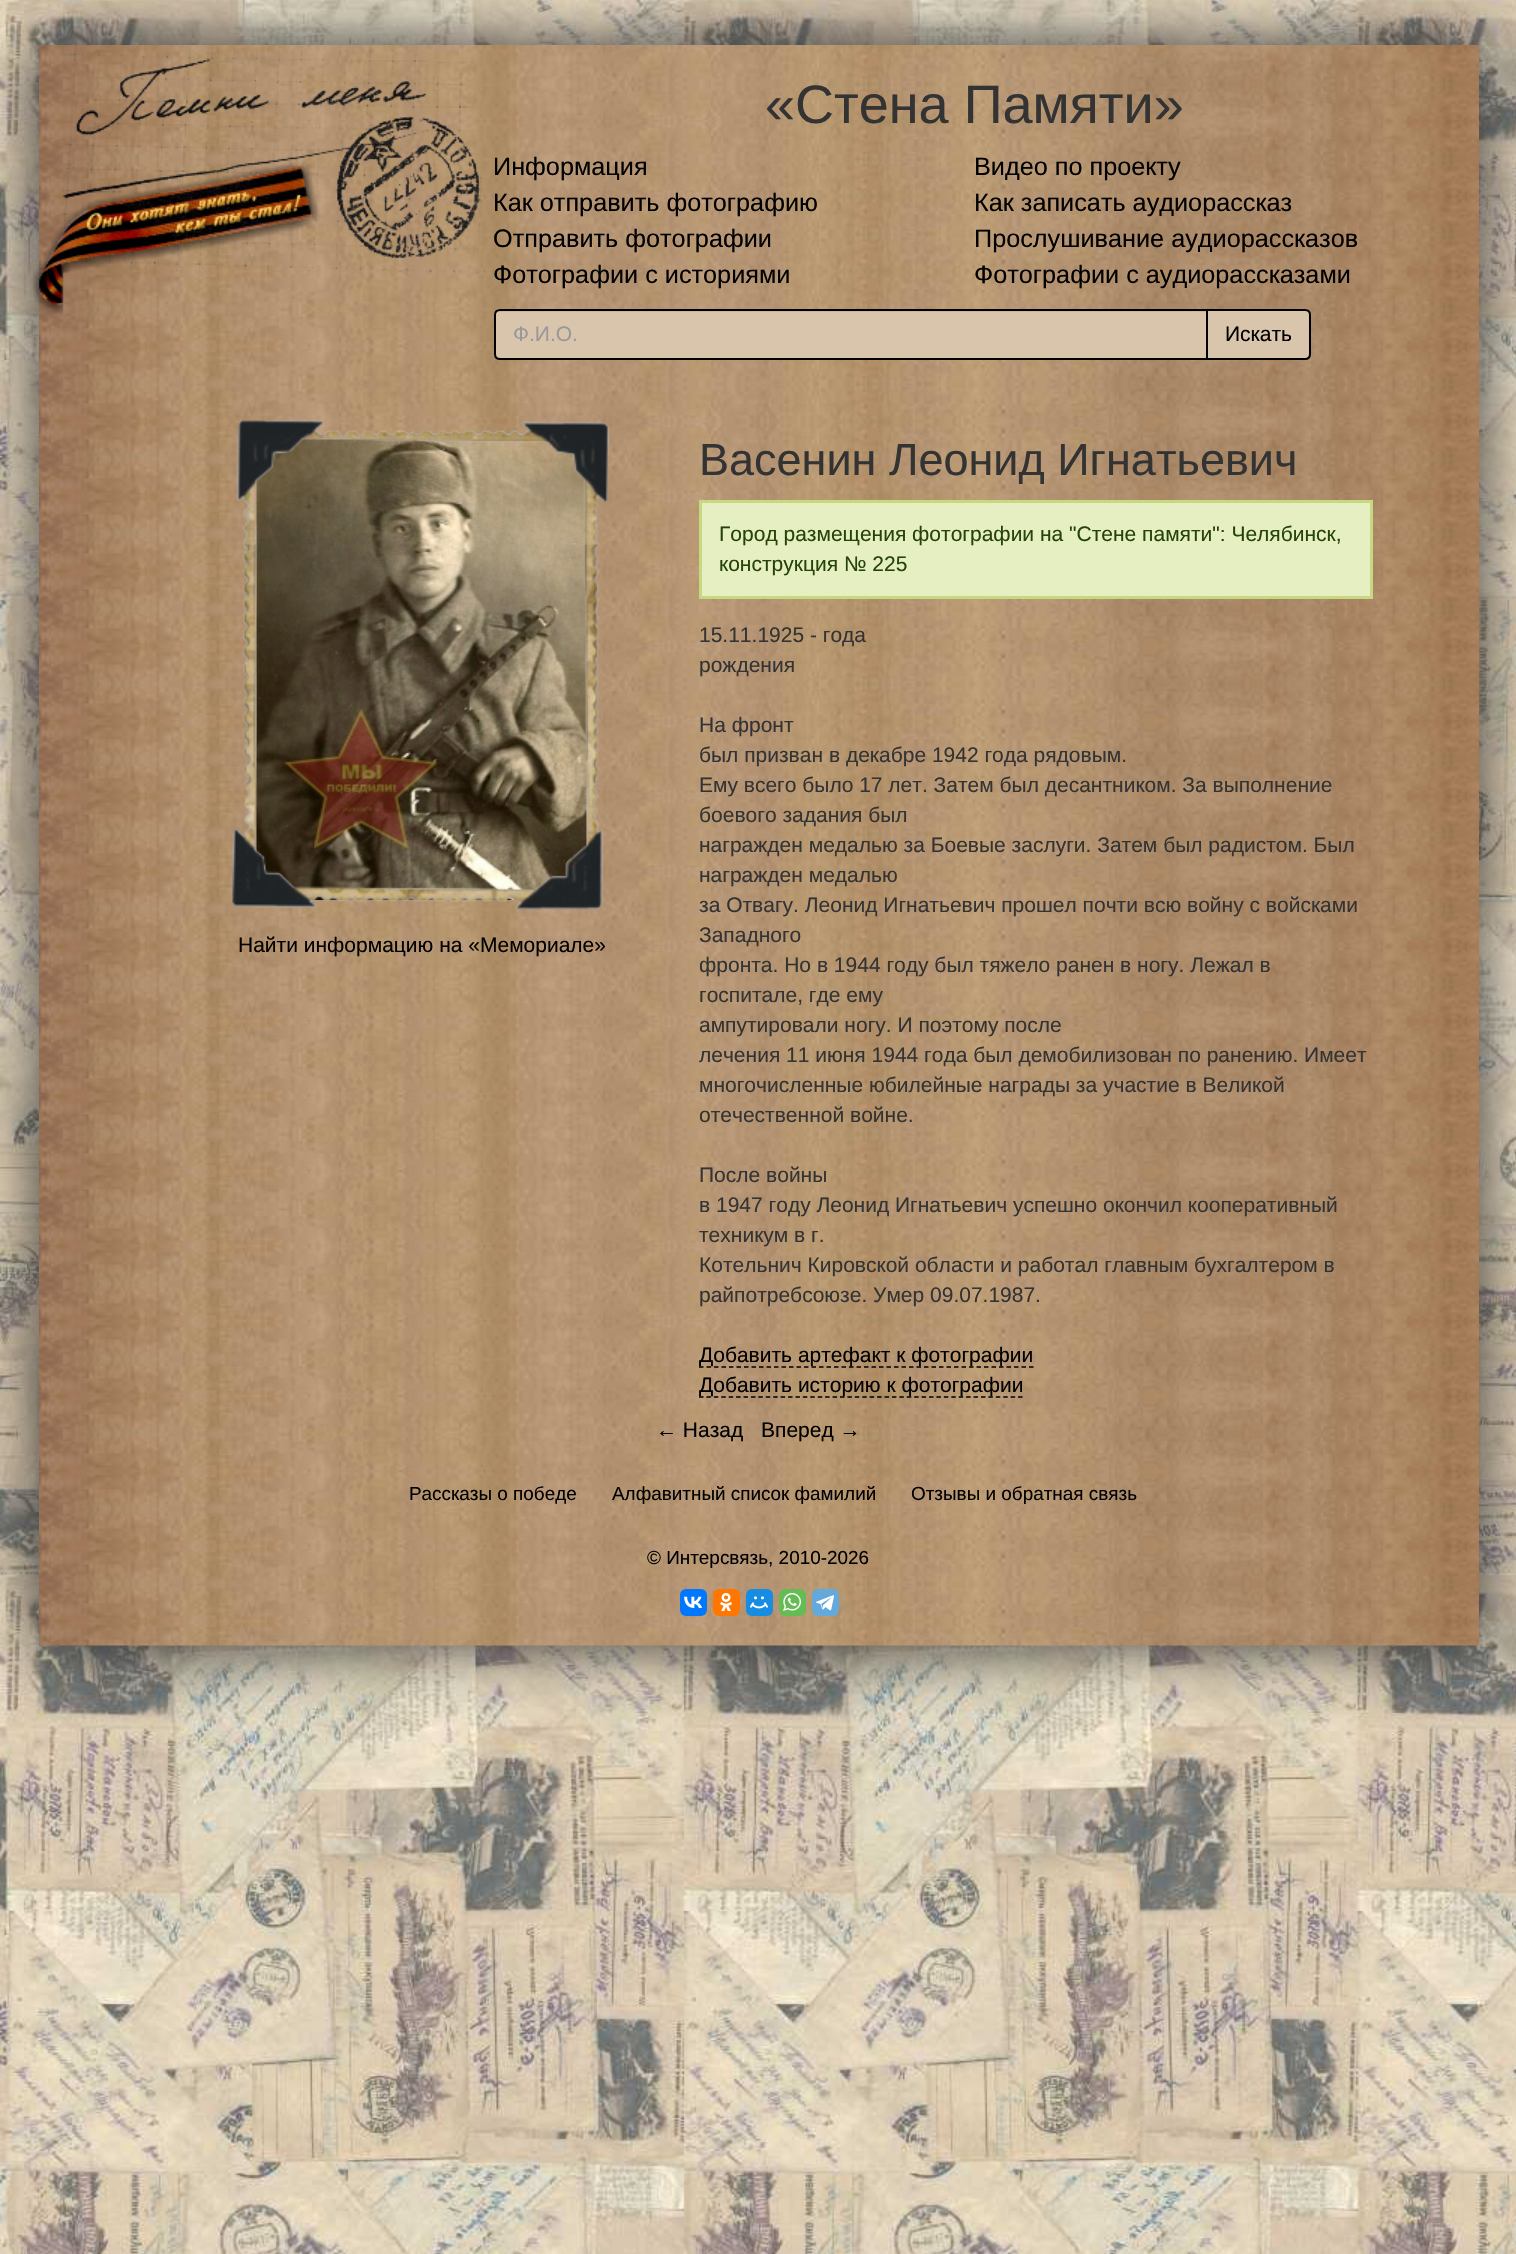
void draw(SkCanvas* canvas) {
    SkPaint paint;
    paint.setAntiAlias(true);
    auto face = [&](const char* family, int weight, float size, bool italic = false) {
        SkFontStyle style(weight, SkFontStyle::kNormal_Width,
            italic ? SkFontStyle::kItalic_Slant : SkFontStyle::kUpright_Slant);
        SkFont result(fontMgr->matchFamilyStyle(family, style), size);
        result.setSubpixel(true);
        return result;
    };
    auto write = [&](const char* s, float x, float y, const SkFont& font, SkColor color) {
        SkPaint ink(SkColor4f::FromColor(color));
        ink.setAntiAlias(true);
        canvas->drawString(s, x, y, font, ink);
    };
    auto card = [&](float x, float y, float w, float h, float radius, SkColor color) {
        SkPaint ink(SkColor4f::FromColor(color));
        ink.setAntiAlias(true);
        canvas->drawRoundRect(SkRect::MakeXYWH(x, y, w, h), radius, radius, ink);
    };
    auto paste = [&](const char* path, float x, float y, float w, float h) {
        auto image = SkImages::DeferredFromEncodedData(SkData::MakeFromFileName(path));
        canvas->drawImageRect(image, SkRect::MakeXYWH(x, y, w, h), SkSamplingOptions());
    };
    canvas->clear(SK_ColorWHITE);
    paste("pic1.png", 0, 0, 1516, 2254);
    paint.setColor(SkColorSetRGB(51, 51, 51));
    paint.setMaskFilter(SkMaskFilter::MakeBlur(kNormal_SkBlurStyle, 33));
    canvas->drawRect(SkRect::MakeXYWH(39, 45, 1440, 1601), paint);
    paint.setMaskFilter(nullptr);
    paste("pic2.png", 39, 45, 1440, 1601);
    paste("pic3.png", 61, 45, 421, 230);
    paste("pic4.png", 31, 161, 289, 153);
    auto kFont1 = face("Liberation Sans", 400, 54);
    write("«Стена Памяти»", 765, 123, kFont1, SkColorSetRGB(51, 51, 51));
    auto kFont2 = face("Liberation Sans", 400, 25.25f);
    write("Информация", 493, 175, kFont2, SK_ColorBLACK);
    write("Видео по проекту", 974, 175, kFont2, SK_ColorBLACK);
    write("Как отправить фотографию", 493, 211, kFont2, SK_ColorBLACK);
    write("Как записать аудиорассказ", 974, 211, kFont2, SK_ColorBLACK);
    write("Отправить фотографии", 493, 247, kFont2, SK_ColorBLACK);
    write("Прослушивание аудиорассказов", 974, 247, kFont2, SK_ColorBLACK);
    write("Фотографии с историями", 493, 283, kFont2, SK_ColorBLACK);
    write("Фотографии с аудиорассказами", 974, 283, kFont2, SK_ColorBLACK);
    paint.setColor(SkColorSetRGB(217, 197, 172));
    canvas->drawPath(SkPathBuilder().moveTo(500, 309).lineTo(1208, 309).lineTo(1208, 360).lineTo(500, 360).cubicTo(496.5f, 360, 494, 357.5f, 494, 354).lineTo(494, 315).cubicTo(494, 311.5f, 496.5f, 309, 500, 309).close().detach(), paint);
    paint.setColor(SkColorSetRGB(201, 182, 159));
    canvas->drawPath(SkPathBuilder().moveTo(500, 312).lineTo(1206, 312).lineTo(1206, 311).lineTo(500, 311).cubicTo(497, 311, 495, 313, 495, 316).cubicTo(495, 314, 497, 312, 500, 312).close().detach(), paint);
    paint.setStyle(SkPaint::kStroke_Style);
    paint.setStrokeWidth(2);
    paint.setColor(SK_ColorBLACK);
    canvas->drawPath(SkPathBuilder().moveTo(500, 310).lineTo(1207, 310).lineTo(1207, 359).lineTo(500, 359).cubicTo(497, 359, 495, 357, 495, 354).lineTo(495, 315).cubicTo(495, 312, 497, 310, 500, 310).close().detach(), paint);
    auto kFont3 = face("Liberation Sans", 400, 21);
    write("Ф.И.О.", 513, 341, kFont3, SkColorSetRGB(153, 153, 153));
    paint.setStyle(SkPaint::kFill_Style);
    paint.setColor(SkColorSetRGB(217, 197, 172));
    canvas->drawPath(SkPathBuilder().moveTo(1207, 310).lineTo(1305, 310).cubicTo(1308, 310, 1310, 312, 1310, 315).lineTo(1310, 354).cubicTo(1310, 357, 1308, 359, 1305, 359).lineTo(1207, 359).close().detach(), paint);
    paint.setStyle(SkPaint::kStroke_Style);
    paint.setColor(SK_ColorBLACK);
    canvas->drawPath(SkPathBuilder().moveTo(1207, 310).lineTo(1305, 310).cubicTo(1308, 310, 1310, 312, 1310, 315).lineTo(1310, 354).cubicTo(1310, 357, 1308, 359, 1305, 359).lineTo(1207, 359).close().detach(), paint);
    write("Искать", 1225, 341, kFont3, SK_ColorBLACK);
    paste("pic6.png", 256, 435, 331, 465);
    paste("pic5.png", 231, 419, 379, 491);
    write("Найти информацию на «Мемориале»", 238, 952, kFont3, SK_ColorBLACK);
    auto kFont4 = face("Liberation Sans", 400, 45);
    write("Васенин Леонид Игнатьевич", 699, 475, kFont4, SkColorSetRGB(51, 51, 51));
    paint.setStyle(SkPaint::kFill_Style);
    paint.setColor(SkColorSetRGB(230, 239, 194));
    canvas->drawRect(SkRect::MakeXYWH(700.5f, 501.5f, 671, 96), paint);
    paint.setStyle(SkPaint::kStroke_Style);
    paint.setStrokeWidth(3);
    paint.setColor(SkColorSetRGB(198, 216, 128));
    canvas->drawRect(SkRect::MakeXYWH(700.5f, 501.5f, 671, 96), paint);
    write("Город размещения фотографии на \"Стене памяти\": Челябинск,", 719, 541, kFont3, SkColorSetRGB(38, 68, 9));
    write("конструкция № 225", 719, 571, kFont3, SkColorSetRGB(38, 68, 9));
    write("15.11.1925 - года", 699, 642, kFont3, SkColorSetRGB(51, 51, 51));
    write("рождения", 699, 672, kFont3, SkColorSetRGB(51, 51, 51));
    write("На фронт", 699, 732, kFont3, SkColorSetRGB(51, 51, 51));
    write("был призван в декабре 1942 года рядовым.", 699, 762, kFont3, SkColorSetRGB(51, 51, 51));
    write("Ему всего было 17 лет. Затем был десантником. За выполнение", 699, 792, kFont3, SkColorSetRGB(51, 51, 51));
    write("боевого задания был", 699, 822, kFont3, SkColorSetRGB(51, 51, 51));
    write("награжден медалью за Боевые заслуги. Затем был радистом. Был", 699, 852, kFont3, SkColorSetRGB(51, 51, 51));
    write("награжден медалью", 699, 882, kFont3, SkColorSetRGB(51, 51, 51));
    write("за Отвагу. Леонид Игнатьевич прошел почти всю войну с войсками", 699, 912, kFont3, SkColorSetRGB(51, 51, 51));
    write("Западного", 699, 942, kFont3, SkColorSetRGB(51, 51, 51));
    write("фронта. Но в 1944 году был тяжело ранен в ногу. Лежал в", 699, 972, kFont3, SkColorSetRGB(51, 51, 51));
    write("госпитале, где ему", 699, 1002, kFont3, SkColorSetRGB(51, 51, 51));
    write("ампутировали ногу. И поэтому после", 699, 1032, kFont3, SkColorSetRGB(51, 51, 51));
    write("лечения 11 июня 1944 года был демобилизован по ранению. Имеет", 699, 1062, kFont3, SkColorSetRGB(51, 51, 51));
    write("многочисленные юбилейные награды за участие в Великой", 699, 1092, kFont3, SkColorSetRGB(51, 51, 51));
    write("отечественной войне.", 699, 1122, kFont3, SkColorSetRGB(51, 51, 51));
    write("После войны", 699, 1182, kFont3, SkColorSetRGB(51, 51, 51));
    write("в 1947 году Леонид Игнатьевич успешно окончил кооперативный", 699, 1212, kFont3, SkColorSetRGB(51, 51, 51));
    write("техникум в г.", 699, 1242, kFont3, SkColorSetRGB(51, 51, 51));
    write("Котельнич Кировской области и работал главным бухгалтером в", 699, 1272, kFont3, SkColorSetRGB(51, 51, 51));
    write("райпотребсоюзе. Умер 09.07.1987.", 699, 1302, kFont3, SkColorSetRGB(51, 51, 51));
    paint.setStrokeWidth(1.5f);
    paint.setColor(SK_ColorBLACK);
    paint.setPathEffect(SkDashPathEffect::Make({{4.5f, 3}}, 0));
    canvas->drawPath(SkPathBuilder().moveTo(699, 1367).lineTo(1033.5f, 1367).detach(), paint);
    paint.setPathEffect(nullptr);
    write("Добавить артефакт к фотографии", 699, 1362, kFont3, SK_ColorBLACK);
    paint.setPathEffect(SkDashPathEffect::Make({{4.5f, 2.92f}}, 0));
    canvas->drawPath(SkPathBuilder().moveTo(699, 1397).lineTo(1023, 1397).detach(), paint);
    paint.setPathEffect(nullptr);
    write("Добавить историю к фотографии", 699, 1392, kFont3, SK_ColorBLACK);
    write("← Назад", 656, 1437, kFont3, SK_ColorBLACK);
    write("Вперед →", 761, 1437, kFont3, SK_ColorBLACK);
    auto kFont5 = face("Liberation Sans", 400, 18.9f);
    write("Рассказы о победе", 409, 1500, kFont5, SK_ColorBLACK);
    write("Алфавитный список фамилий", 612, 1500, kFont5, SK_ColorBLACK);
    write("Отзывы и обратная связь", 911, 1500, kFont5, SK_ColorBLACK);
    write("© Интерсвязь, 2010-2026", 647, 1564, kFont5, SK_ColorBLACK);
    card(680, 1589, 27, 27, 6, SkColorSetRGB(0, 119, 255));
    paste("pic7.png", 684, 1596, 18, 12);
    card(713, 1589, 27, 27, 6, SkColorSetRGB(255, 119, 0));
    paste("pic8.png", 720, 1593, 12, 18);
    card(746, 1589, 27, 27, 6, SkColorSetRGB(22, 141, 226));
    paste("pic9.png", 750, 1596, 18, 13);
    card(779, 1589, 27, 27, 6, SkColorSetRGB(101, 188, 84));
    paste("pic10.png", 783, 1593, 18, 18);
    card(812, 1589, 27, 27, 6, SkColorSetRGB(100, 169, 220));
    paste("pic11.png", 816, 1595, 18, 16);
}
